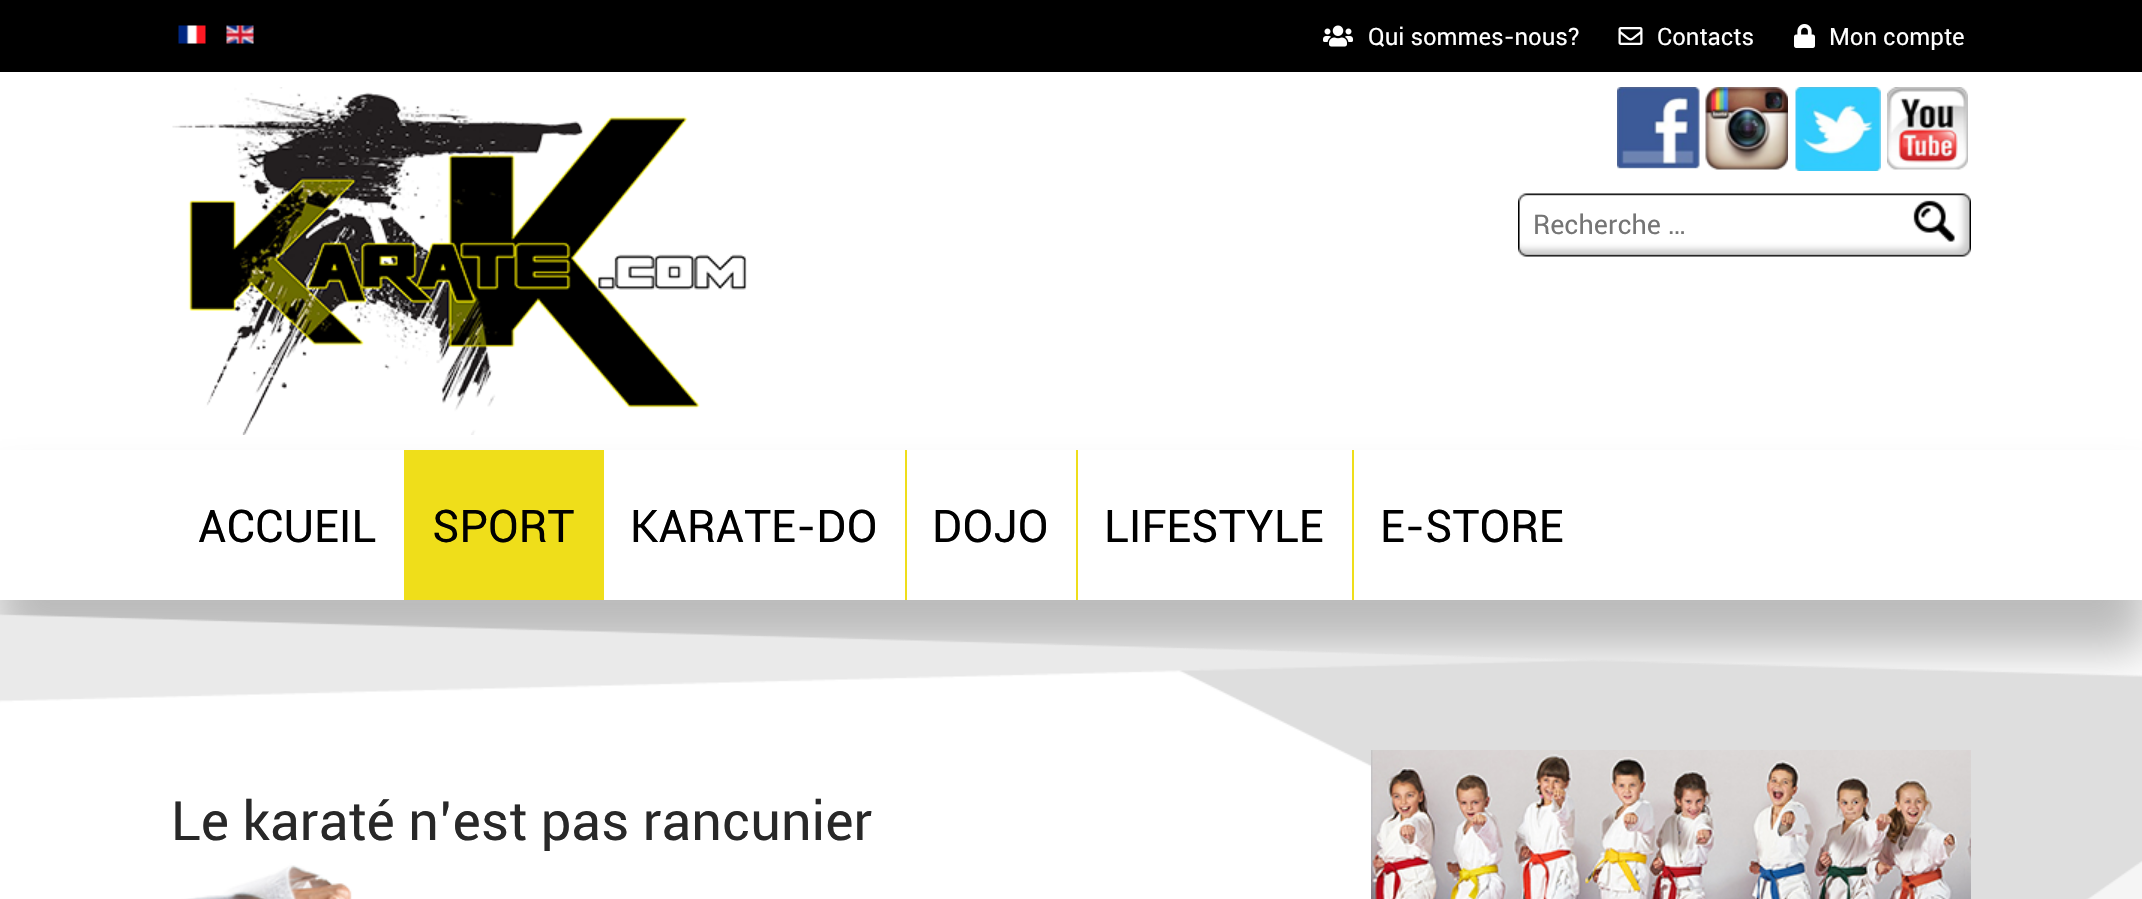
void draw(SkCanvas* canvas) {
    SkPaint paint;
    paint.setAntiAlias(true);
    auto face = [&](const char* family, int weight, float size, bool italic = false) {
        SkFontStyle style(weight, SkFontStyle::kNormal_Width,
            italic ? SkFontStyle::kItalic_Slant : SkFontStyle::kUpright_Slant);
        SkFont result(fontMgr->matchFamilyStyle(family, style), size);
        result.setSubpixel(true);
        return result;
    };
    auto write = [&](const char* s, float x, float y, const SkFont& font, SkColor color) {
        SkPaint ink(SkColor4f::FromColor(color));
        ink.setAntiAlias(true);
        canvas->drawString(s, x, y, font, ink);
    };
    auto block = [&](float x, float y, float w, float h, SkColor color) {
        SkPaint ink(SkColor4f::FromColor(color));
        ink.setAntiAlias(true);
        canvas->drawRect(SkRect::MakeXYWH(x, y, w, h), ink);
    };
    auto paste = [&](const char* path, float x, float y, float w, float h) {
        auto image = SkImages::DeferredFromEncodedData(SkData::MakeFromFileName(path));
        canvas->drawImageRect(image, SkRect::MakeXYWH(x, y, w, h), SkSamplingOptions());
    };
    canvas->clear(SK_ColorWHITE);
    block(0, 0, 2142, 72, SK_ColorBLACK);
    paste("pic1.png", 178, 25, 28, 19);
    paste("pic2.png", 226, 25, 28, 19);
    paste("pic3.png", 1323, 25, 30, 22);
    auto kFont1 = face("Roboto", 400, 24);
    write("Qui sommes-nous?", 1368, 45, kFont1, SK_ColorWHITE);
    paste("pic4.png", 1618, 27, 25, 18);
    write("Contacts", 1657, 45, kFont1, SK_ColorWHITE);
    paste("pic5.png", 1794, 24, 21, 24);
    write("Mon compte", 1829, 45, kFont1, SK_ColorWHITE);
    canvas->save();
    canvas->clipPath(SkPathBuilder(SkPathFillType::kEvenOdd).moveTo(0, 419).lineTo(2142, 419).lineTo(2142, 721).lineTo(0, 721).close().moveTo(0, 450).lineTo(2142, 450).lineTo(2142, 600).lineTo(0, 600).close().detach(), true);
    paint.setColor(SkColorSetARGB(128, 119, 119, 119));
    paint.setMaskFilter(SkMaskFilter::MakeBlur(kNormal_SkBlurStyle, 23));
    canvas->drawRect(SkRect::MakeXYWH(-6, 489, 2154, 162), paint);
    paint.setMaskFilter(nullptr);
    canvas->restore();
    paste("pic6.png", 172, 87, 575, 348);
    paste("pic7.png", 1617, 87, 83, 82);
    paste("pic8.png", 1705, 87, 83, 83);
    paste("pic9.png", 1795, 87, 86, 84);
    paste("pic10.png", 1887, 87, 81, 83);
    paste("pic11.png", 1518, 193, 453, 64);
    auto kFont2 = face("Roboto", 400, 27);
    write("Recherche …", 1533, 234, kFont2, SkColorSetRGB(117, 117, 117));
    block(404, 450, 200, 150, SkColorSetRGB(239, 222, 26));
    auto kFont3 = face("Roboto", 400, 45);
    write("ACCUEIL", 198, 542, kFont3, SK_ColorBLACK);
    write("SPORT", 432, 542, kFont3, SK_ColorBLACK);
    block(905, 450, 2, 150, SkColorSetRGB(239, 222, 26));
    write("KARATE-DO", 630, 542, kFont3, SK_ColorBLACK);
    block(1076, 450, 2, 150, SkColorSetRGB(239, 222, 26));
    write("DOJO", 932, 542, kFont3, SK_ColorBLACK);
    block(1352, 450, 2, 150, SkColorSetRGB(239, 222, 26));
    write("LIFESTYLE", 1104, 542, kFont3, SK_ColorBLACK);
    write("E-STORE", 1380, 542, kFont3, SK_ColorBLACK);
    paste("pic12.png", 0, 614, 2142, 285);
    auto kFont4 = face("Roboto", 400, 54);
    write("Le karaté n’est pas rancunier", 171, 840, kFont4, SkColorSetRGB(40, 40, 40));
    paste("pic13.png", 1371, 750, 600, 149);
}
